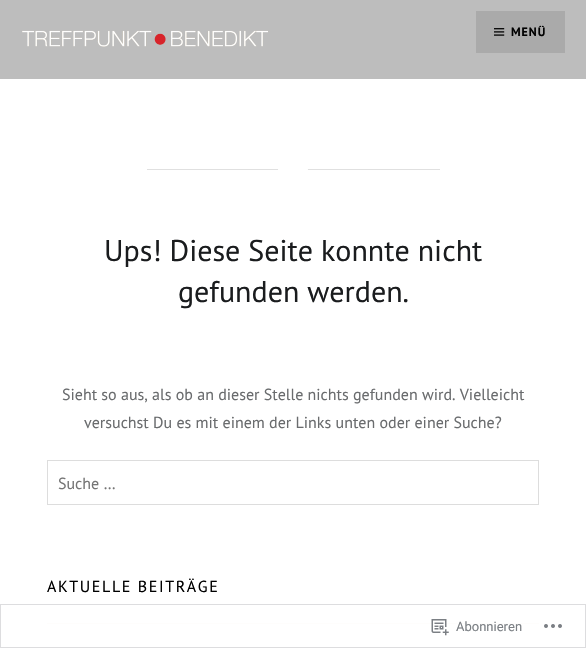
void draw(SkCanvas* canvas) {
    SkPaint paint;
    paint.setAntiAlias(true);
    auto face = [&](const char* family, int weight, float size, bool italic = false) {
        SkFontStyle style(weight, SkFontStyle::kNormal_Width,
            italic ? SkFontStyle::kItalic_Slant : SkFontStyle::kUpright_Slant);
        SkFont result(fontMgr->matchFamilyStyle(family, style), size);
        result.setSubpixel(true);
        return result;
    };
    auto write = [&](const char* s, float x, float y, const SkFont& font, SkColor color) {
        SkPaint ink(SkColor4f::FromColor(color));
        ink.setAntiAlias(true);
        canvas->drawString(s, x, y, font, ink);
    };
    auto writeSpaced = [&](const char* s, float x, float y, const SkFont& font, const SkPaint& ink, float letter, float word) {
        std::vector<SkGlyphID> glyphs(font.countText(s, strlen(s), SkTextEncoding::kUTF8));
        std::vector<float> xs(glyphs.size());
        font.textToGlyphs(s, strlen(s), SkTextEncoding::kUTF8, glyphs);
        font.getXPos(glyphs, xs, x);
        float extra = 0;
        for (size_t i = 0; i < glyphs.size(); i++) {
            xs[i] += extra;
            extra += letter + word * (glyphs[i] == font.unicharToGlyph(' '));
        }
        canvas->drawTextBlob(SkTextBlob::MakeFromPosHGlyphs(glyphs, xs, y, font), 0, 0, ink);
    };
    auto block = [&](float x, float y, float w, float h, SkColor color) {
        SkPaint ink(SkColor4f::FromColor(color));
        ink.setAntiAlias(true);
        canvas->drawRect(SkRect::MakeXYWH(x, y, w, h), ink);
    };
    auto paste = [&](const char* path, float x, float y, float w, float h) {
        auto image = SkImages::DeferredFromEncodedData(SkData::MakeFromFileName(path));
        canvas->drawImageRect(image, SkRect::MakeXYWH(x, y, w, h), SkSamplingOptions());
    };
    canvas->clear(SK_ColorWHITE);
    block(0, 0, 586, 79, SkColorSetRGB(189, 189, 189));
    paste("pic1.png", 22, 30, 247, 17);
    block(476, 11, 89, 42, SkColorSetRGB(170, 170, 170));
    paste("pic2.png", 494, 28, 11, 8);
    auto kFont1 = face("PT Sans", 700, 12);
    paint.setColor(SK_ColorBLACK);
    writeSpaced("MENÜ", 511, 36, kFont1, paint, 1, 0);
    block(147, 169, 293, 1, SkColorSetRGB(224, 224, 224));
    paint.setColor(SK_ColorWHITE);
    canvas->drawCircle(293, 169, 15, paint);
    auto kFont2 = face("PT Sans", 400, 30);
    write("Ups! Diese Seite konnte nicht", 104, 261, kFont2, SkColorSetRGB(26, 28, 30));
    write("gefunden werden.", 178, 302, kFont2, SkColorSetRGB(26, 28, 30));
    auto kFont3 = face("PT Sans", 400, 16);
    write("Sieht so aus, als ob an dieser Stelle nichts gefunden wird. Vielleicht", 62, 400, kFont3, SkColorSetRGB(106, 108, 110));
    write("versuchst Du es mit einem der Links unten oder einer Suche?", 84, 428, kFont3, SkColorSetRGB(106, 108, 110));
    paint.setStyle(SkPaint::kStroke_Style);
    paint.setStrokeWidth(1);
    paint.setColor(SkColorSetRGB(221, 221, 221));
    canvas->drawRect(SkRect::MakeXYWH(47.5f, 460.5f, 491, 44), paint);
    write("Suche …", 58, 489, kFont3, SkColorSetRGB(117, 117, 117));
    paint.setStyle(SkPaint::kFill_Style);
    paint.setColor(SK_ColorBLACK);
    writeSpaced("AKTUELLE BEITRÄGE", 47, 592, kFont3, paint, 1.6f, 0);
    block(47, 623, 492, 1, SkColorSetRGB(254, 253, 252));
    paint.setStyle(SkPaint::kStroke_Style);
    paint.setColor(SkColorSetARGB(250, 220, 220, 222));
    canvas->drawRect(SkRect::MakeXYWH(0.5f, 604.5f, 585, 43), paint);
    paste("pic3.png", 431, 619, 18, 17);
    auto kFont4 = face("Roboto", 400, 13);
    write("Abonnieren", 456, 631, kFont4, SkColorSetRGB(123, 127, 132));
    paste("pic4.png", 544, 624, 18, 4);
}
